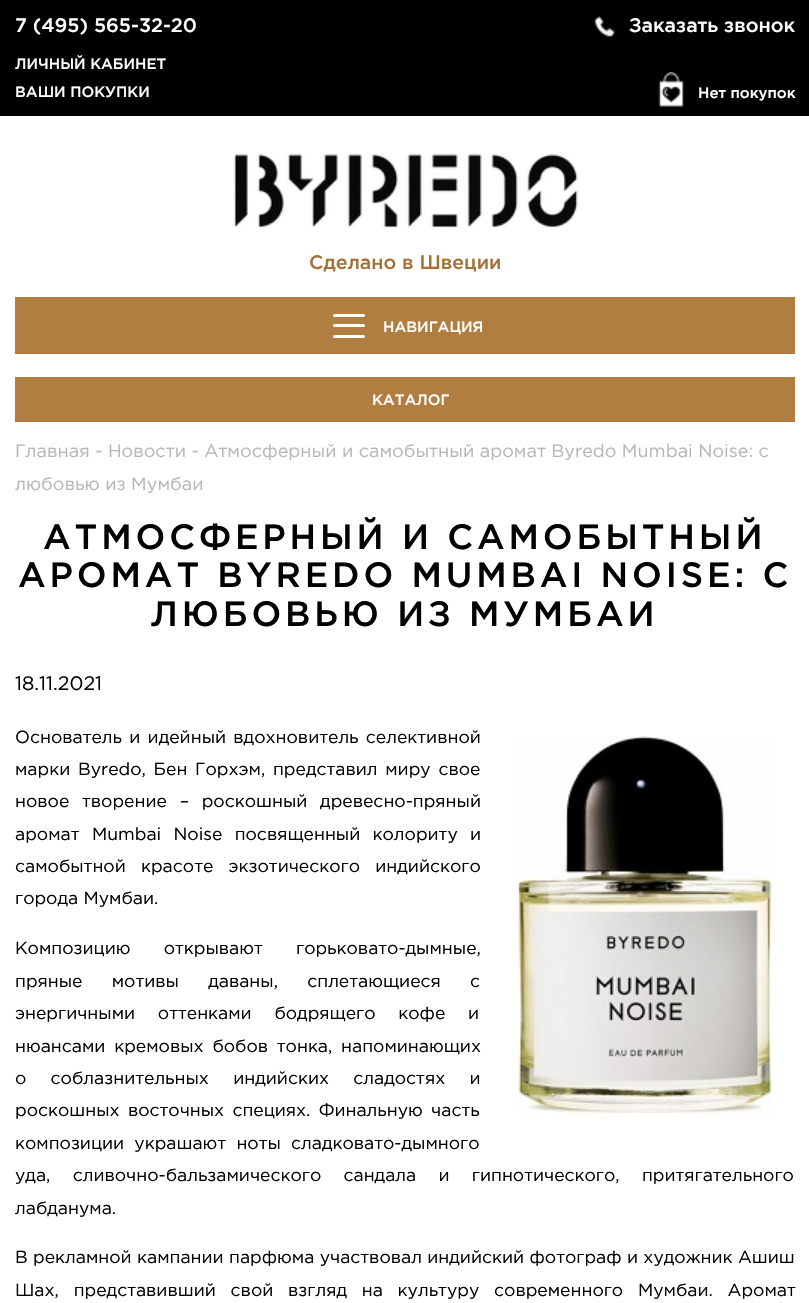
void draw(SkCanvas* canvas) {
    SkPaint paint;
    paint.setAntiAlias(true);
    auto face = [&](const char* family, int weight, float size, bool italic = false) {
        SkFontStyle style(weight, SkFontStyle::kNormal_Width,
            italic ? SkFontStyle::kItalic_Slant : SkFontStyle::kUpright_Slant);
        SkFont result(fontMgr->matchFamilyStyle(family, style), size);
        result.setSubpixel(true);
        return result;
    };
    auto write = [&](const char* s, float x, float y, const SkFont& font, SkColor color) {
        SkPaint ink(SkColor4f::FromColor(color));
        ink.setAntiAlias(true);
        canvas->drawString(s, x, y, font, ink);
    };
    auto writeSpaced = [&](const char* s, float x, float y, const SkFont& font, const SkPaint& ink, float letter, float word) {
        std::vector<SkGlyphID> glyphs(font.countText(s, strlen(s), SkTextEncoding::kUTF8));
        std::vector<float> xs(glyphs.size());
        font.textToGlyphs(s, strlen(s), SkTextEncoding::kUTF8, glyphs);
        font.getXPos(glyphs, xs, x);
        float extra = 0;
        for (size_t i = 0; i < glyphs.size(); i++) {
            xs[i] += extra;
            extra += letter + word * (glyphs[i] == font.unicharToGlyph(' '));
        }
        canvas->drawTextBlob(SkTextBlob::MakeFromPosHGlyphs(glyphs, xs, y, font), 0, 0, ink);
    };
    auto block = [&](float x, float y, float w, float h, SkColor color) {
        SkPaint ink(SkColor4f::FromColor(color));
        ink.setAntiAlias(true);
        canvas->drawRect(SkRect::MakeXYWH(x, y, w, h), ink);
    };
    auto card = [&](float x, float y, float w, float h, float radius, SkColor color) {
        SkPaint ink(SkColor4f::FromColor(color));
        ink.setAntiAlias(true);
        canvas->drawRoundRect(SkRect::MakeXYWH(x, y, w, h), radius, radius, ink);
    };
    auto paste = [&](const char* path, float x, float y, float w, float h) {
        auto image = SkImages::DeferredFromEncodedData(SkData::MakeFromFileName(path));
        canvas->drawImageRect(image, SkRect::MakeXYWH(x, y, w, h), SkSamplingOptions());
    };
    canvas->clear(SK_ColorWHITE);
    block(0, 0, 809, 116, SK_ColorBLACK);
    auto kFont1 = face("Gotham", 500, 19.5f);
    write("7 (495) 565-32-20", 15, 32, kFont1, SK_ColorWHITE);
    paste("pic1.png", 594, 16, 21, 22);
    write("Заказать звонок", 629, 32, kFont1, SK_ColorWHITE);
    auto kFont2 = face("Gotham", 500, 15);
    write("ЛИЧНЫЙ КАБИНЕТ", 15, 69, kFont2, SK_ColorWHITE);
    write("ВАШИ ПОКУПКИ", 15, 97, kFont2, SK_ColorWHITE);
    paste("pic2.png", 658, 72, 26, 35);
    write("Нет покупок", 698, 98, kFont2, SK_ColorWHITE);
    paste("pic3.png", 234, 152, 344, 76);
    write("Сделано в Швеции", 309, 269, kFont1, SkColorSetRGB(163, 113, 54));
    block(15, 297, 780, 57, SkColorSetRGB(177, 126, 65));
    card(333, 314, 32, 3, 1.5f, SK_ColorWHITE);
    card(333, 324, 32, 3, 1.5f, SK_ColorWHITE);
    card(333, 335, 32, 3, 1.5f, SK_ColorWHITE);
    write("НАВИГАЦИЯ", 383, 332, kFont2, SK_ColorWHITE);
    block(15, 377, 780, 45, SkColorSetRGB(177, 126, 65));
    write("КАТАЛОГ", 372, 405, kFont2, SK_ColorWHITE);
    auto kFont3 = face("Gotham", 400, 18);
    write("Главная - Новости - Атмосферный и самобытный аромат Byredo Mumbai Noise: с", 15, 457, kFont3, SkColorSetRGB(182, 182, 182));
    write("любовью из Мумбаи", 15, 490, kFont3, SkColorSetRGB(182, 182, 182));
    auto kFont4 = face("Gotham", 500, 35.1f);
    paint.setColor(SK_ColorBLACK);
    writeSpaced("АТМОСФЕРНЫЙ И САМОБЫТНЫЙ", 43, 549, kFont4, paint, 3.85f, 0);
    writeSpaced("АРОМАТ BYREDO MUMBAI NOISE: С", 18, 587, kFont4, paint, 3.85f, 0);
    writeSpaced("ЛЮБОВЬЮ ИЗ МУМБАИ", 151, 626, kFont4, paint, 3.85f, 0);
    auto kFont5 = face("Gotham", 400, 19.5f);
    write("18.11.2021", 15, 690, kFont5, SK_ColorBLACK);
    auto kFont6 = face("Gotham", 400, 17.55f);
    writeSpaced("Основатель и идейный вдохновитель селективной", 15, 743, kFont6, paint, 0, 2);
    writeSpaced("марки Byredo, Бен Горхэм, представил миру свое", 15, 775, kFont6, paint, 0, 2.5f);
    writeSpaced("новое творение – роскошный древесно-пряный", 15, 807, kFont6, paint, 0, 7.5f);
    write("аромат", 15, 840, kFont6, SK_ColorBLACK);
    writeSpaced("Mumbai Noise посвященный колориту и", 92, 840, kFont6, paint, 0, 7);
    writeSpaced("самобытной красоте экзотического индийского", 15, 872, kFont6, paint, 0, 10);
    write("города Мумбаи.", 15, 904, kFont6, SK_ColorBLACK);
    paste("pic4.png", 517, 736, 266, 384);
    writeSpaced("Композицию открывают горьковато-дымные,", 15, 954, kFont6, paint, 0, 28);
    writeSpaced("пряные мотивы даваны, сплетающиеся с", 15, 987, kFont6, paint, 0, 24);
    writeSpaced("энергичными оттенками бодрящего кофе и", 15, 1019, kFont6, paint, 0, 17.5f);
    writeSpaced("нюансами кремовых бобов тонка, напоминающих", 15, 1052, kFont6, paint, 0, 3.5f);
    writeSpaced("о соблазнительных индийских сладостях и", 15, 1084, kFont6, paint, 0, 19);
    writeSpaced("роскошных восточных специях. Финальную часть", 15, 1116, kFont6, paint, 0, 3);
    writeSpaced("композиции украшают ноты сладковато-дымного", 15, 1149, kFont6, paint, 0, 5);
    writeSpaced("уда, сливочно-бальзамического сандала и гипнотического, притягательного", 15, 1181, kFont6, paint, 0, 17);
    write("лабданума.", 15, 1214, kFont6, SK_ColorBLACK);
    writeSpaced("В рекламной кампании парфюма участвовал индийский фотограф и художник Ашиш", 15, 1263, kFont6, paint, 0, 0.1f);
    writeSpaced("Шах, представивший свой взгляд на культуру современного Мумбаи. Аромат", 15, 1296, kFont6, paint, 0, 9.5f);
}
